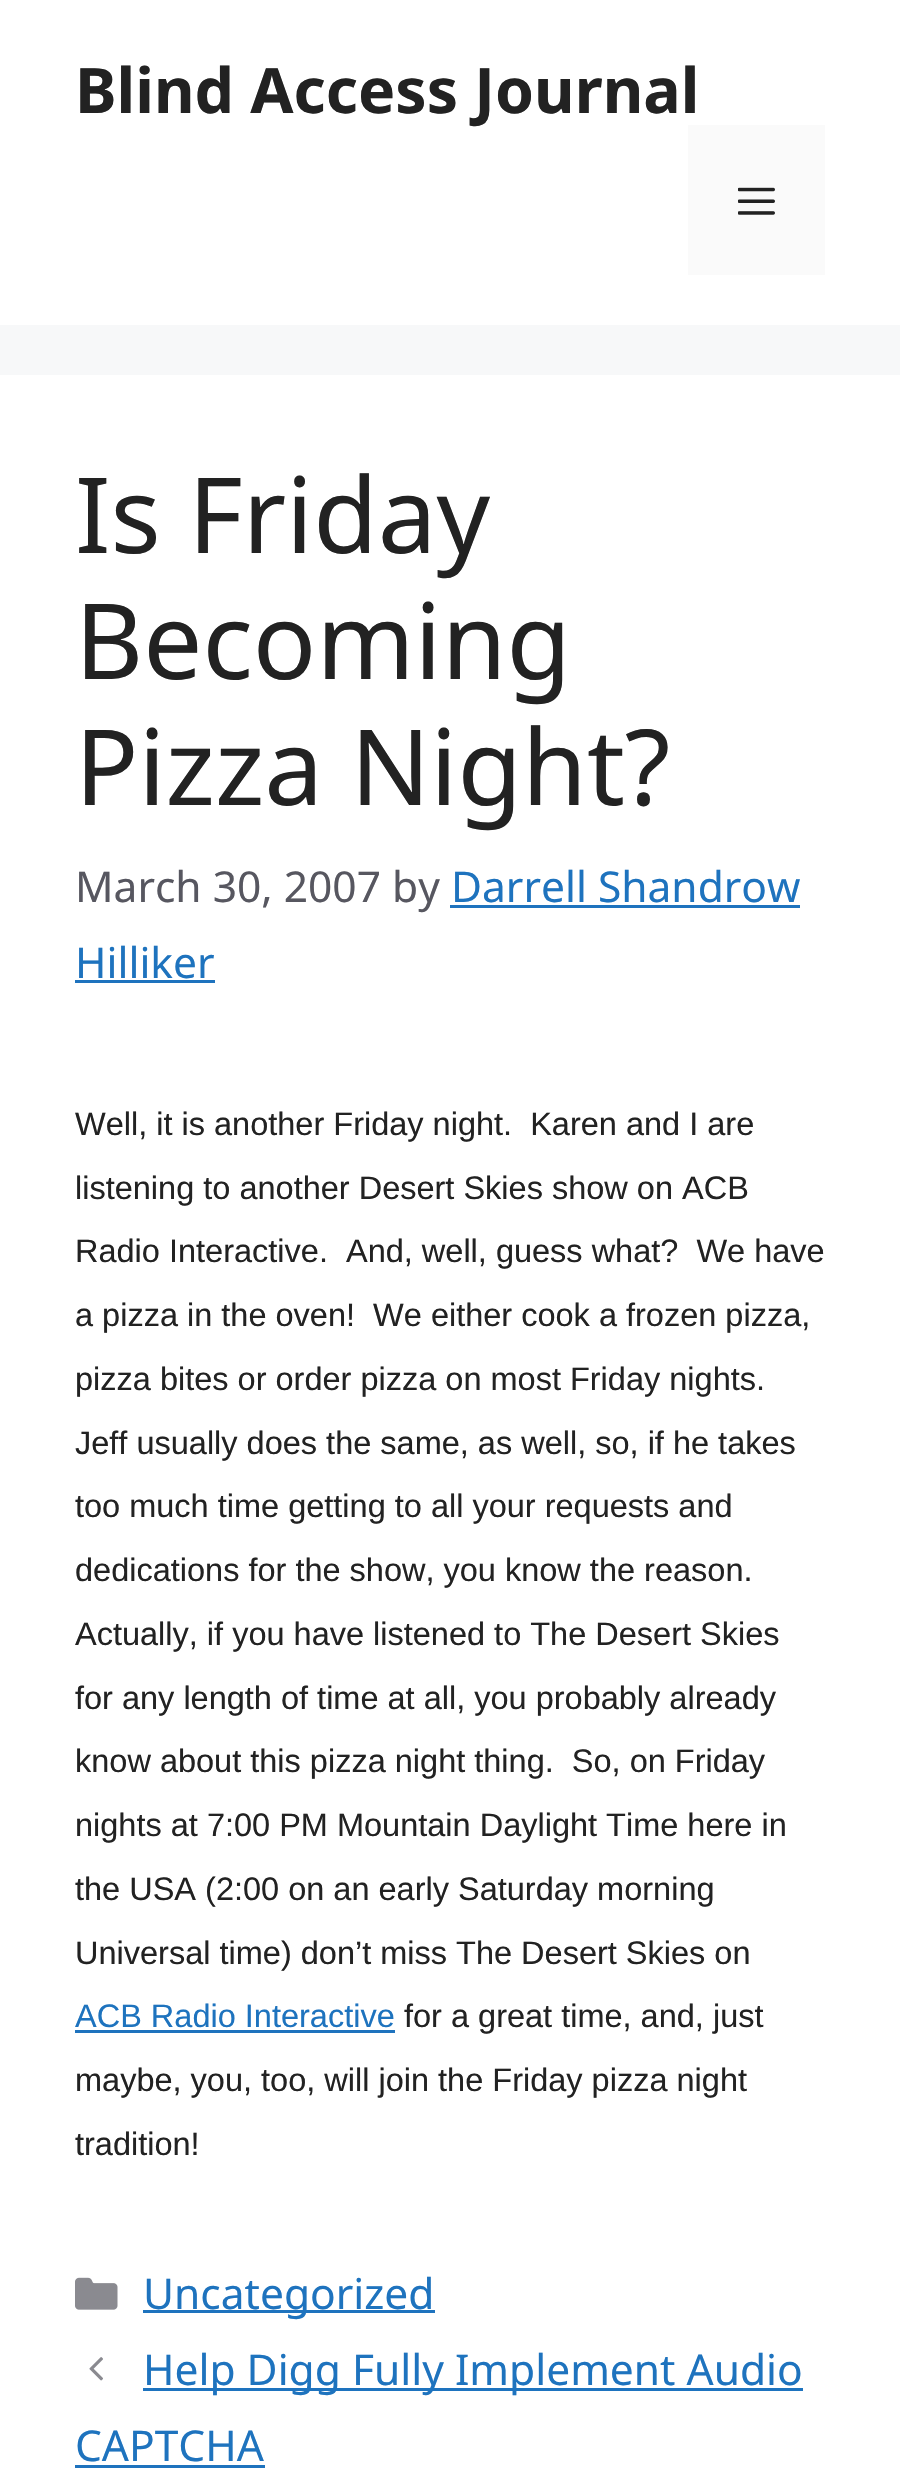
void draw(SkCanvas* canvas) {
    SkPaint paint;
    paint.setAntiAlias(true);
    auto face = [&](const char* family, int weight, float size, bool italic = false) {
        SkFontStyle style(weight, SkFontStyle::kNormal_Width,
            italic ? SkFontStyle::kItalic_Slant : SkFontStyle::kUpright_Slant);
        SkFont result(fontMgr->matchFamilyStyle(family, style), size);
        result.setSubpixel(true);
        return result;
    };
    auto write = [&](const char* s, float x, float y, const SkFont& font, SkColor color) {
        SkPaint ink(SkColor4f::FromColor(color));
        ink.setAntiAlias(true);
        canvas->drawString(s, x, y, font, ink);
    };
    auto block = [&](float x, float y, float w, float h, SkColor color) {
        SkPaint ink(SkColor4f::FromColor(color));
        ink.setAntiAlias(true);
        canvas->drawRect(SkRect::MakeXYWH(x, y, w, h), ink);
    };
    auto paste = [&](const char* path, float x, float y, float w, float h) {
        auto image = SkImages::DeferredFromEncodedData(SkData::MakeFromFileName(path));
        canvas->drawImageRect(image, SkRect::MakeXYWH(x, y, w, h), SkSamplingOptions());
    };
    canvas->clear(SkColorSetRGB(247, 248, 249));
    block(0, 0, 900, 325, SK_ColorWHITE);
    auto kFont1 = face("Noto Sans", 700, 62.5f);
    write("Blind Access Journal", 75, 113, kFont1, SkColorSetRGB(34, 34, 34));
    block(688, 125, 137, 150, SkColorSetRGB(250, 250, 250));
    paste("pic1.png", 738, 187, 37, 28);
    block(0, 375, 900, 2113, SK_ColorWHITE);
    auto kFont2 = face("Noto Sans", 400, 105);
    write("Is Friday", 75, 553, kFont2, SkColorSetRGB(34, 34, 34));
    write("Becoming", 75, 679, kFont2, SkColorSetRGB(34, 34, 34));
    write("Pizza Night?", 75, 805, kFont2, SkColorSetRGB(34, 34, 34));
    auto kFont3 = face("Noto Sans", 400, 42.5f);
    write("March 30, 2007 by", 75, 902, kFont3, SkColorSetRGB(87, 87, 96));
    write("Darrell Shandrow", 451, 902, kFont3, SkColorSetRGB(30, 115, 190));
    block(450, 905, 350, 3, SkColorSetRGB(30, 115, 190));
    write("Hilliker", 75, 978, kFont3, SkColorSetRGB(30, 115, 190));
    block(75, 980, 140, 3, SkColorSetRGB(30, 115, 190));
    auto kFont4 = face("Liberation Sans", 400, 32.5f);
    write("Well, it is another Friday night.  Karen and I are", 75, 1135, kFont4, SkColorSetRGB(34, 34, 34));
    write("listening to another Desert Skies show on ACB", 75, 1199, kFont4, SkColorSetRGB(34, 34, 34));
    write("Radio Interactive.  And, well, guess what?  We have", 75, 1262, kFont4, SkColorSetRGB(34, 34, 34));
    write("a pizza in the oven!  We either cook a frozen pizza,", 75, 1326, kFont4, SkColorSetRGB(34, 34, 34));
    write("pizza bites or order pizza on most Friday nights.", 75, 1390, kFont4, SkColorSetRGB(34, 34, 34));
    write("Jeff usually does the same, as well, so, if he takes", 75, 1454, kFont4, SkColorSetRGB(34, 34, 34));
    write("too much time getting to all your requests and", 75, 1517, kFont4, SkColorSetRGB(34, 34, 34));
    write("dedications for the show, you know the reason.", 75, 1581, kFont4, SkColorSetRGB(34, 34, 34));
    write("Actually, if you have listened to The Desert Skies", 75, 1645, kFont4, SkColorSetRGB(34, 34, 34));
    write("for any length of time at all, you probably already", 75, 1709, kFont4, SkColorSetRGB(34, 34, 34));
    write("know about this pizza night thing.  So, on Friday", 75, 1772, kFont4, SkColorSetRGB(34, 34, 34));
    write("nights at 7:00 PM Mountain Daylight Time here in", 75, 1836, kFont4, SkColorSetRGB(34, 34, 34));
    write("the USA (2:00 on an early Saturday morning", 75, 1900, kFont4, SkColorSetRGB(34, 34, 34));
    write("Universal time) don’t miss The Desert Skies on", 75, 1964, kFont4, SkColorSetRGB(34, 34, 34));
    write("ACB Radio Interactive", 75, 2027, kFont4, SkColorSetRGB(30, 115, 190));
    block(75, 2030, 320, 3, SkColorSetRGB(30, 115, 190));
    write("for a great time, and, just", 404, 2027, kFont4, SkColorSetRGB(34, 34, 34));
    write("maybe, you, too, will join the Friday pizza night", 75, 2091, kFont4, SkColorSetRGB(34, 34, 34));
    write("tradition!", 75, 2155, kFont4, SkColorSetRGB(34, 34, 34));
    paste("pic2.png", 75, 2277, 43, 33);
    block(143, 2310, 292, 3, SkColorSetRGB(30, 115, 190));
    write("Uncategorized", 143, 2309, kFont3, SkColorSetRGB(30, 115, 190));
    paste("pic3.png", 89, 2357, 14, 24);
    block(143, 2388, 660, 3, SkColorSetRGB(30, 115, 190));
    write("Help Digg Fully Implement Audio", 143, 2385, kFont3, SkColorSetRGB(30, 115, 190));
    write("CAPTCHA", 75, 2461, kFont3, SkColorSetRGB(30, 115, 190));
    block(75, 2465, 190, 3, SkColorSetRGB(30, 115, 190));
}
